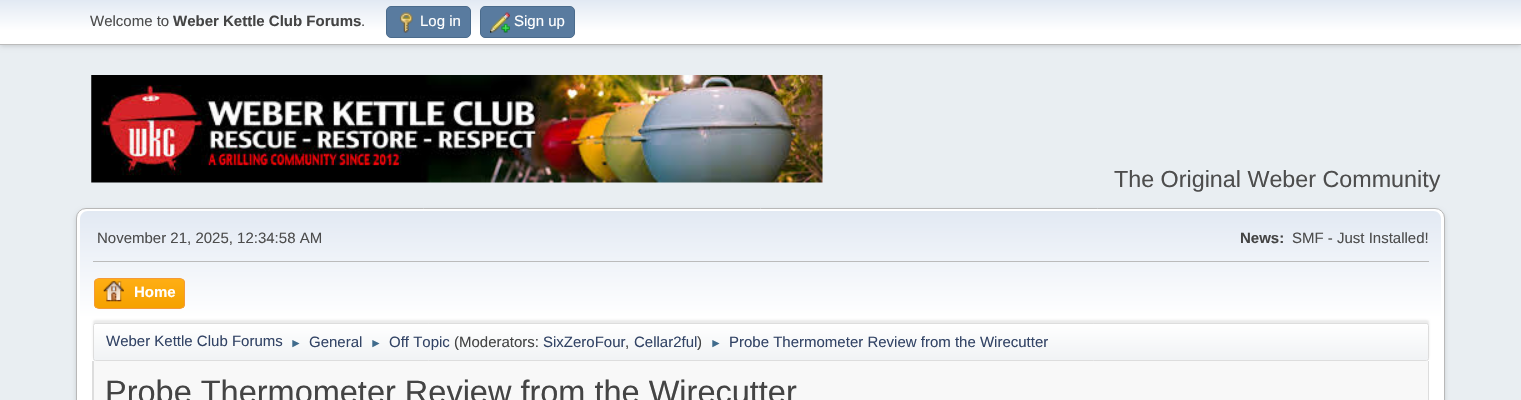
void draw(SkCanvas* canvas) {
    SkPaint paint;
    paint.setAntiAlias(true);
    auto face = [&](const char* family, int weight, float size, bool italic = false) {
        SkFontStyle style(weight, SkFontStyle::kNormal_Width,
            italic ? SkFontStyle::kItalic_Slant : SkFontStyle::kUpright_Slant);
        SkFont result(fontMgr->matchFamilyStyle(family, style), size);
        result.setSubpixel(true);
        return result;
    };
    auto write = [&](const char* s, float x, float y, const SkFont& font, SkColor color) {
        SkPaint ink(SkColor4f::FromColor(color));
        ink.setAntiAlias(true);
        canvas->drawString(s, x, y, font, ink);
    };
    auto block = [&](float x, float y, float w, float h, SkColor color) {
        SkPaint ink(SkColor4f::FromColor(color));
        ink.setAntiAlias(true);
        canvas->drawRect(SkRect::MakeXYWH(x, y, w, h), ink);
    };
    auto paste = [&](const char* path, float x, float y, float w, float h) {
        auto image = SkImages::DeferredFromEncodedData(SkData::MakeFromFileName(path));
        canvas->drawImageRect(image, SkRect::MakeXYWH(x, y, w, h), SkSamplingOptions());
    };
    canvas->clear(SkColorSetRGB(233, 238, 242));
    paint.setColor(SkColorSetARGB(41, 0, 0, 0));
    paint.setMaskFilter(SkMaskFilter::MakeBlur(kNormal_SkBlurStyle, 2.5f));
    canvas->drawRect(SkRect::MakeXYWH(0, 1, 1521, 45), paint);
    paint.setMaskFilter(nullptr);
    {
        const SkColor colors[] = {SkColorSetRGB(226, 233, 243), SK_ColorWHITE};
        const float stops[] = {0, 0.7f};
        const SkPoint ends[] = {{761, 0}, {761, 44}};
        paint.setShader(SkGradientShader::MakeLinear(ends, colors, stops, 2, SkTileMode::kClamp));
        paint.setAlpha(255);
    }
    canvas->drawRect(SkRect::MakeXYWH(0, 0, 1521, 44), paint);
    block(0, 44, 1521, 1, SkColorSetRGB(187, 187, 187));
    auto kFont1 = face("Liberation Sans", 400, 15);
    write("Welcome to", 90, 26, kFont1, SkColorSetRGB(77, 77, 77));
    auto kFont2 = face("Liberation Sans", 700, 15);
    write("Weber Kettle Club Forums", 173, 26, kFont2, SkColorSetRGB(68, 68, 68));
    write(".", 361, 26, kFont1, SkColorSetRGB(77, 77, 77));
    paint.setShader(nullptr);
    paint.setColor(SkColorSetRGB(89, 123, 159));
    canvas->drawRoundRect(SkRect::MakeXYWH(386.5f, 6.5f, 84, 31), 4.5f, 4.5f, paint);
    paint.setStyle(SkPaint::kStroke_Style);
    paint.setStrokeWidth(1);
    paint.setColor(SkColorSetRGB(74, 107, 140));
    canvas->drawRoundRect(SkRect::MakeXYWH(386.5f, 6.5f, 84, 31), 4.5f, 4.5f, paint);
    paste("pic1.png", 399, 12, 14, 21);
    write("Log in", 420, 26, kFont1, SK_ColorWHITE);
    paint.setStyle(SkPaint::kFill_Style);
    paint.setColor(SkColorSetRGB(89, 123, 159));
    canvas->drawRoundRect(SkRect::MakeXYWH(480.5f, 6.5f, 94, 31), 4.5f, 4.5f, paint);
    paint.setStyle(SkPaint::kStroke_Style);
    paint.setColor(SkColorSetRGB(74, 107, 140));
    canvas->drawRoundRect(SkRect::MakeXYWH(480.5f, 6.5f, 94, 31), 4.5f, 4.5f, paint);
    paste("pic2.png", 490, 12, 20, 21);
    write("Sign up", 514, 26, kFont1, SK_ColorWHITE);
    paste("pic3.png", 91, 75, 732, 108);
    auto kFont3 = face("Liberation Sans", 400, 23.3f);
    write("The Original Weber Community", 1114, 187, kFont3, SkColorSetRGB(77, 77, 77));
    paint.setStyle(SkPaint::kFill_Style);
    paint.setColor(SkColorSetARGB(36, 0, 0, 0));
    paint.setMaskFilter(SkMaskFilter::MakeBlur(kNormal_SkBlurStyle, 2));
    canvas->drawRoundRect(SkRect::MakeXYWH(76, 210, 1369, 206), 10, 10, paint);
    paint.setMaskFilter(nullptr);
    paint.setColor(SK_ColorWHITE);
    canvas->drawRoundRect(SkRect::MakeXYWH(76.5f, 208.5f, 1368, 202), 9.5f, 9.5f, paint);
    paint.setStyle(SkPaint::kStroke_Style);
    paint.setColor(SkColorSetRGB(184, 184, 184));
    canvas->drawRoundRect(SkRect::MakeXYWH(76.5f, 208.5f, 1368, 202), 9.5f, 9.5f, paint);
    paint.setStyle(SkPaint::kFill_Style);
    {
        const SkColor colors[] = {SkColorSetRGB(226, 233, 243), SK_ColorWHITE};
        const float stops[] = {0, 0.7f};
        const SkPoint ends[] = {{761, 211}, {761, 364}};
        paint.setShader(SkGradientShader::MakeLinear(ends, colors, stops, 2, SkTileMode::kClamp));
        paint.setAlpha(255);
    }
    canvas->drawPath(SkPathBuilder().moveTo(88, 211).lineTo(1433, 211).cubicTo(1437.5f, 211, 1441, 214.5f, 1441, 219).lineTo(1441, 364).lineTo(80, 364).lineTo(80, 219).cubicTo(80, 214.5f, 83.5f, 211, 88, 211).close().detach(), paint);
    block(93, 261, 1336, 1, SkColorSetRGB(187, 187, 187));
    write("November 21, 2025, 12:34:58 AM", 97, 243, kFont1, SkColorSetRGB(77, 77, 77));
    write("News:", 1240, 243, kFont2, SkColorSetRGB(68, 68, 68));
    write("SMF - Just Installed!", 1292, 243, kFont1, SkColorSetRGB(77, 77, 77));
    canvas->save();
    canvas->clipPath(SkPathBuilder().moveTo(99, 278).lineTo(180, 278).cubicTo(183, 278, 185, 280, 185, 283).lineTo(185, 304).cubicTo(185, 307, 183, 309, 180, 309).lineTo(99, 309).cubicTo(96, 309, 94, 307, 94, 304).lineTo(94, 283).cubicTo(94, 280, 96, 278, 99, 278).close().detach(), true);
    {
        const SkColor colors[] = {SkColorSetRGB(255, 174, 20), SkColorSetRGB(245, 161, 0)};
        const float stops[] = {0, 1};
        const SkPoint ends[] = {{139, 279}, {139, 308}};
        paint.setShader(SkGradientShader::MakeLinear(ends, colors, stops, 2, SkTileMode::kClamp));
        paint.setAlpha(255);
    }
    canvas->drawRect(SkRect::MakeXYWH(94, 279, 91, 29), paint);
    canvas->restore();
    paint.setStyle(SkPaint::kStroke_Style);
    paint.setShader(nullptr);
    paint.setColor(SkColorSetRGB(244, 154, 58));
    canvas->drawRoundRect(SkRect::MakeXYWH(94.5f, 278.5f, 90, 30), 4.5f, 4.5f, paint);
    paste("pic4.png", 103, 281, 21, 21);
    write("Home", 134, 297, kFont2, SK_ColorWHITE);
    paint.setStyle(SkPaint::kFill_Style);
    paint.setColor(SkColorSetARGB(20, 0, 0, 0));
    paint.setMaskFilter(SkMaskFilter::MakeBlur(kNormal_SkBlurStyle, 1));
    canvas->drawRoundRect(SkRect::MakeXYWH(93, 320, 1336, 39), 2.5f, 2.5f, paint);
    paint.setMaskFilter(nullptr);
    canvas->save();
    canvas->clipPath(SkPathBuilder().moveTo(95.5f, 323).lineTo(1426.5f, 323).cubicTo(1428, 323, 1429, 324, 1429, 325.5f).lineTo(1429, 358.5f).cubicTo(1429, 360, 1428, 361, 1426.5f, 361).lineTo(95.5f, 361).cubicTo(94, 361, 93, 360, 93, 358.5f).lineTo(93, 325.5f).cubicTo(93, 324, 94, 323, 95.5f, 323).close().detach(), true);
    {
        const SkColor colors[] = {SK_ColorWHITE, SkColorSetRGB(241, 243, 245)};
        const float stops[] = {0, 0.95f};
        const SkPoint ends[] = {{761, 324}, {761, 360}};
        paint.setShader(SkGradientShader::MakeLinear(ends, colors, stops, 2, SkTileMode::kClamp));
        paint.setAlpha(255);
    }
    canvas->drawRect(SkRect::MakeXYWH(93, 324, 1336, 36), paint);
    canvas->restore();
    paint.setStyle(SkPaint::kStroke_Style);
    paint.setShader(nullptr);
    paint.setColor(SkColorSetRGB(221, 221, 221));
    canvas->drawRoundRect(SkRect::MakeXYWH(93.5f, 323.5f, 1335, 37), 2, 2, paint);
    write("Weber Kettle Club Forums", 106, 346, kFont1, SkColorSetRGB(51, 68, 102));
    auto kFont4 = face("Liberation Sans", 400, 12);
    write("►", 290, 347, kFont4, SkColorSetRGB(63, 107, 140));
    write("General", 309, 347, kFont1, SkColorSetRGB(51, 68, 102));
    write("►", 370, 347, kFont4, SkColorSetRGB(63, 107, 140));
    write("Off Topic", 389, 347, kFont1, SkColorSetRGB(51, 68, 102));
    write("(Moderators:", 454, 347, kFont1, SkColorSetRGB(68, 68, 68));
    write("SixZeroFour", 543, 347, kFont1, SkColorSetRGB(51, 68, 102));
    write(",", 625, 347, kFont1, SkColorSetRGB(68, 68, 68));
    write("Cellar2ful", 634, 347, kFont1, SkColorSetRGB(51, 68, 102));
    write(")", 697, 347, kFont1, SkColorSetRGB(68, 68, 68));
    write("►", 710, 347, kFont4, SkColorSetRGB(63, 107, 140));
    write("Probe Thermometer Review from the Wirecutter", 729, 347, kFont1, SkColorSetRGB(51, 68, 102));
    block(94, 361, 1334, 39, SkColorSetRGB(248, 248, 248));
    paint.setStyle(SkPaint::kFill_Style);
    canvas->drawPath(SkPathBuilder(SkPathFillType::kEvenOdd).moveTo(92, 361).lineTo(1429, 361).lineTo(1429, 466).cubicTo(1429, 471, 1425, 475, 1420, 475).lineTo(101, 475).cubicTo(96, 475, 92, 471, 92, 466).close().moveTo(94, 361).lineTo(1428, 361).lineTo(1428, 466).cubicTo(1428, 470, 1424, 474, 1420, 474).lineTo(101, 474).cubicTo(97, 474, 94, 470, 94, 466).close().detach(), paint);
    auto kFont5 = face("Liberation Sans", 400, 32.5f);
    write("Probe Thermometer Review from the Wirecutter", 105, 403, kFont5, SkColorSetRGB(68, 68, 68));
}
